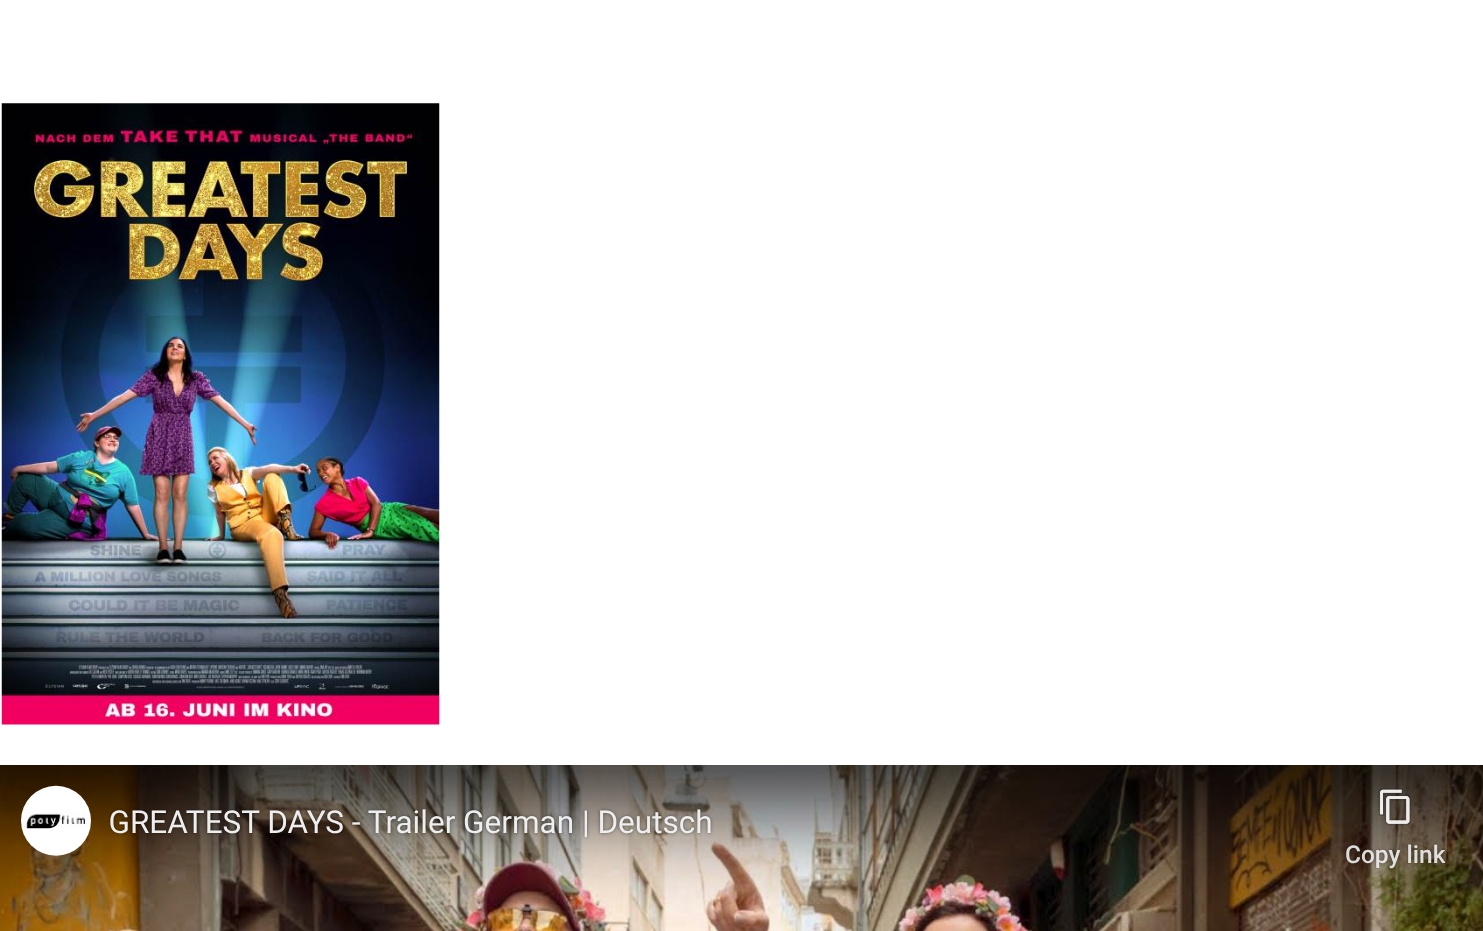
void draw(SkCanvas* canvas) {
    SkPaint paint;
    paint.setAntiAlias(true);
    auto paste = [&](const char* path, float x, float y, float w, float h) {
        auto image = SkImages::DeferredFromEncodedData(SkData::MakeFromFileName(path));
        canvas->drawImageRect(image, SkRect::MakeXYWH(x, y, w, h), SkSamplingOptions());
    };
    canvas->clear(SK_ColorWHITE);
    paste("pic1.png", 1, 103, 439, 622);
    paste("pic2.png", 0, 765, 1483, 166);
}
